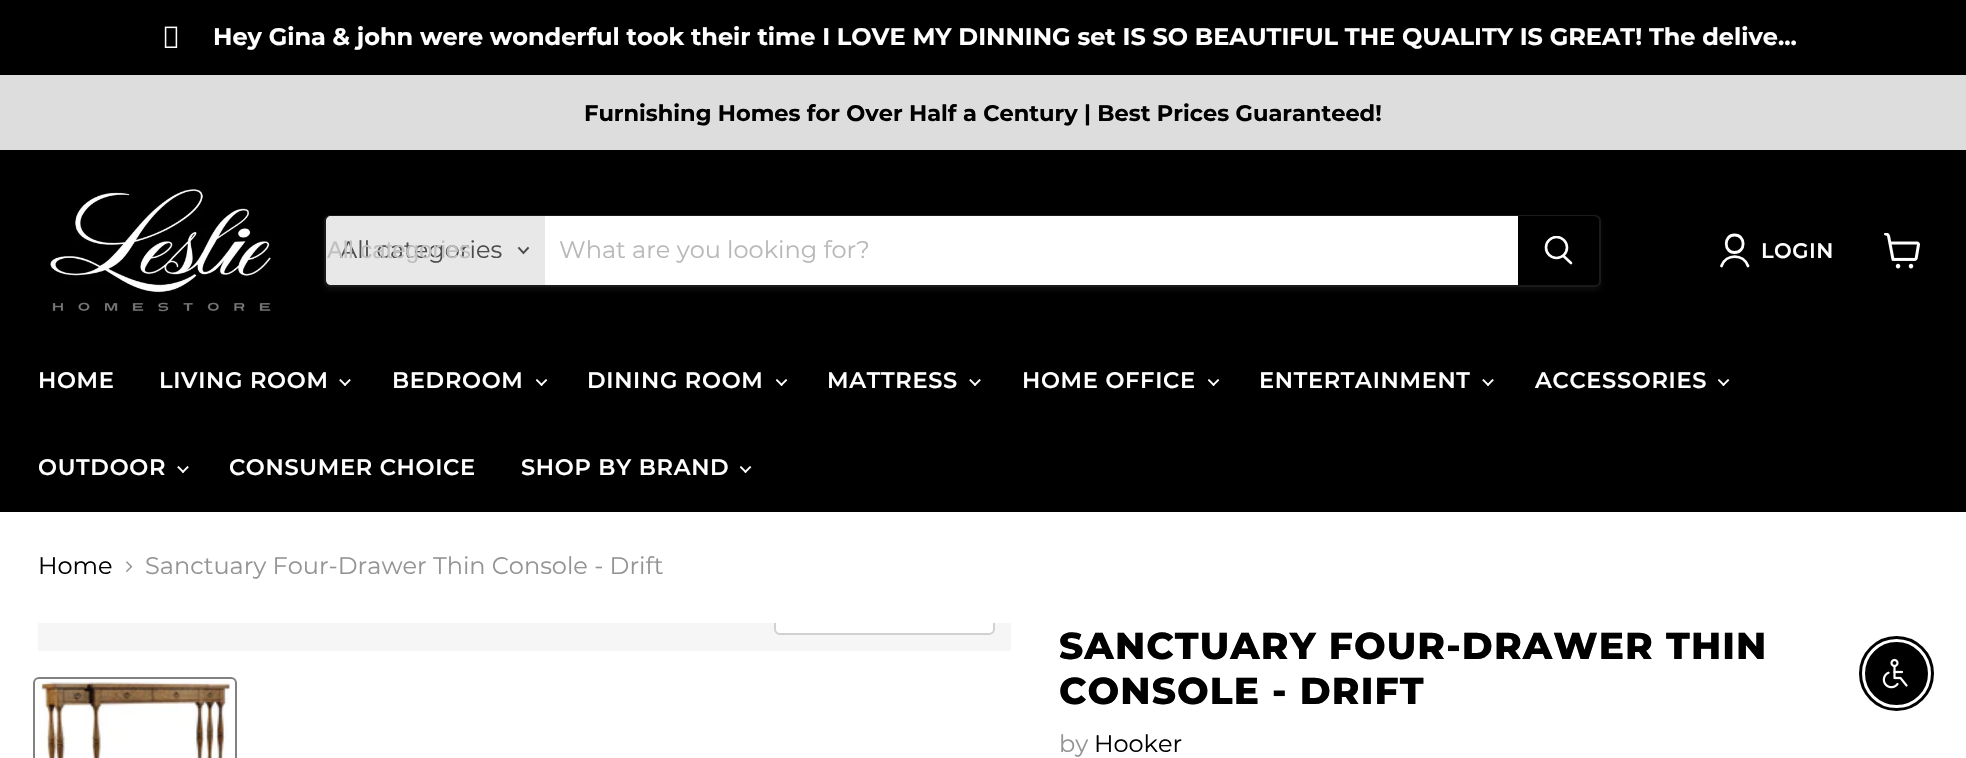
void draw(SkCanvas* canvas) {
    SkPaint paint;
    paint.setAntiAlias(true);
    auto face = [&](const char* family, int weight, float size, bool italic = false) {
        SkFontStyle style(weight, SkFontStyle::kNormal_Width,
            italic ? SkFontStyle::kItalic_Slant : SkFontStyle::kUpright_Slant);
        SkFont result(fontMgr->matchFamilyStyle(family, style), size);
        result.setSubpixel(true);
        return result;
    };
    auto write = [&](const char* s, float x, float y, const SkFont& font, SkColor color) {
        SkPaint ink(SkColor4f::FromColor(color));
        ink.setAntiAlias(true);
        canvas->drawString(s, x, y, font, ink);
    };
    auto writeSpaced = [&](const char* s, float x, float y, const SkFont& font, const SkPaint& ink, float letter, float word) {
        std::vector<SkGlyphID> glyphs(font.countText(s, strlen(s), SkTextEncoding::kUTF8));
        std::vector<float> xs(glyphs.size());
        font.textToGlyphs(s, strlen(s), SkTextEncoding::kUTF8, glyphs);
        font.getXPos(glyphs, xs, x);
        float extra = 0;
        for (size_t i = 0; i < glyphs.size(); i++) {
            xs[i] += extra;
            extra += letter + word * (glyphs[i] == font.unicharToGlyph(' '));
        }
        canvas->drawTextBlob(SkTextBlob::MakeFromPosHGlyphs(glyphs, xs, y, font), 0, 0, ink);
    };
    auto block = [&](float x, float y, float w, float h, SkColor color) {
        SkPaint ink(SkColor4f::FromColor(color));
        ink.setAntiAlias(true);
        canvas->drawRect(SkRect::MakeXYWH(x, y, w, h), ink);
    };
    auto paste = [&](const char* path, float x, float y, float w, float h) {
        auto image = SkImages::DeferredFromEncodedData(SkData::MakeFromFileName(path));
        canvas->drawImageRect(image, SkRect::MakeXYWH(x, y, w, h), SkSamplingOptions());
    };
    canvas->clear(SK_ColorWHITE);
    block(0, 0, 1966, 75, SK_ColorBLACK);
    paste("pic1.png", 164, 26, 14, 22);
    auto kFont1 = face("Montserrat", 700, 24);
    write("Hey Gina & john were wonderful took their time I LOVE MY DINNING set IS SO BEAUTIFUL THE QUALITY IS GREAT! The delive...", 213, 45, kFont1, SK_ColorWHITE);
    block(0, 75, 1966, 75, SkColorSetRGB(221, 221, 221));
    auto kFont2 = face("Montserrat", 700, 22.5f);
    write("Furnishing Homes for Over Half a Century | Best Prices Guaranteed!", 584, 121, kFont2, SK_ColorBLACK);
    block(0, 150, 1966, 362, SK_ColorBLACK);
    paste("pic2.png", 50, 189, 221, 123);
    canvas->save();
    canvas->clipPath(SkPathBuilder(SkPathFillType::kEvenOdd).moveTo(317, 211).lineTo(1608, 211).lineTo(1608, 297).lineTo(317, 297).close().moveTo(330, 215).lineTo(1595, 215).cubicTo(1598.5f, 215, 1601, 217.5f, 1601, 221).lineTo(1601, 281).cubicTo(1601, 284.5f, 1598.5f, 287, 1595, 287).lineTo(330, 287).cubicTo(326.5f, 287, 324, 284.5f, 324, 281).lineTo(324, 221).cubicTo(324, 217.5f, 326.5f, 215, 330, 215).close().detach(), true);
    paint.setColor(SkColorSetARGB(28, 128, 128, 128));
    paint.setMaskFilter(SkMaskFilter::MakeBlur(kNormal_SkBlurStyle, 2));
    canvas->drawRoundRect(SkRect::MakeXYWH(324, 218, 1277, 72), 6, 6, paint);
    paint.setMaskFilter(nullptr);
    canvas->restore();
    paint.setStyle(SkPaint::kStroke_Style);
    paint.setStrokeWidth(2);
    paint.setColor(SkColorSetARGB(51, 128, 128, 128));
    canvas->drawRoundRect(SkRect::MakeXYWH(325, 216, 1275, 70), 5, 5, paint);
    paint.setStyle(SkPaint::kFill_Style);
    paint.setColor(SkColorSetRGB(232, 232, 232));
    canvas->drawPath(SkPathBuilder().moveTo(331, 216).lineTo(545, 216).lineTo(545, 285).lineTo(331, 285).cubicTo(328, 285, 326, 283, 326, 280).lineTo(326, 221).cubicTo(326, 218, 328, 216, 331, 216).close().detach(), paint);
    auto kFont3 = face("Montserrat", 400, 24);
    write("All categories", 340, 258, kFont3, SkColorSetRGB(77, 77, 77));
    auto kFont4 = face("Liberation Sans", 400, 24);
    write("All categories", 327, 258, kFont4, SkColorSetRGB(192, 192, 192));
    paint.setStyle(SkPaint::kStroke_Style);
    paint.setStrokeWidth(1.9f);
    paint.setStrokeCap(SkPaint::kSquare_Cap);
    paint.setColor(SkColorSetRGB(77, 77, 77));
    canvas->drawPath(SkPathBuilder().moveTo(523.5f, 253).lineTo(528, 248).moveTo(523.5f, 253).lineTo(519, 248).detach(), paint);
    block(545, 216, 973, 69, SK_ColorWHITE);
    write("What are you looking for?", 559, 258, kFont3, SkColorSetRGB(184, 184, 184));
    paint.setStyle(SkPaint::kFill_Style);
    paint.setColor(SK_ColorBLACK);
    canvas->drawPath(SkPathBuilder().moveTo(1519, 217).lineTo(1594, 217).cubicTo(1596, 217, 1598, 219, 1598, 221).lineTo(1598, 280).cubicTo(1598, 282, 1596, 284, 1594, 284).lineTo(1519, 284).close().detach(), paint);
    paint.setStyle(SkPaint::kStroke_Style);
    paint.setStrokeWidth(2);
    paint.setStrokeCap(SkPaint::kButt_Cap);
    canvas->drawPath(SkPathBuilder().moveTo(1519, 217).lineTo(1594, 217).cubicTo(1596, 217, 1598, 219, 1598, 221).lineTo(1598, 280).cubicTo(1598, 282, 1596, 284, 1594, 284).lineTo(1519, 284).close().detach(), paint);
    paint.setStrokeWidth(2.6f);
    paint.setStrokeCap(SkPaint::kRound_Cap);
    paint.setColor(SK_ColorWHITE);
    canvas->drawPath(SkPathBuilder().moveTo(1571, 263).lineTo(1563.5f, 256).detach(), paint);
    canvas->save();
    canvas->clipRect(SkRect::MakeXYWH(1544, 236, 30, 31));
    paint.setStrokeCap(SkPaint::kButt_Cap);
    canvas->drawCircle(1556.5f, 247.5f, 10.5f, paint);
    canvas->restore();
    paint.setStrokeWidth(2.8f);
    paint.setStrokeCap(SkPaint::kRound_Cap);
    paint.setStrokeJoin(SkPaint::kRound_Join);
    canvas->drawPath(SkPathBuilder().moveTo(1734.5f, 252.5f).cubicTo(1746, 252.5f, 1746, 235, 1734.5f, 235).cubicTo(1723.5f, 235, 1723.5f, 252.5f, 1734.5f, 252.5f).close().moveTo(1748, 266).cubicTo(1743.5f, 253.5f, 1726, 253.5f, 1721.5f, 266).detach(), paint);
    auto kFont5 = face("Montserrat", 600, 21);
    paint.setStyle(SkPaint::kFill_Style);
    writeSpaced("LOGIN", 1761, 258, kFont5, paint, 0.5f, 0);
    paste("pic3.png", 1884, 233, 36, 36);
    auto kFont6 = face("Montserrat", 600, 22.5f);
    writeSpaced("HOME", 38, 388, kFont6, paint, 0.7f, 0);
    writeSpaced("LIVING ROOM", 159, 388, kFont6, paint, 0.7f, 0);
    paste("pic4.png", 339, 379, 12, 7);
    writeSpaced("BEDROOM", 392, 388, kFont6, paint, 0.7f, 0);
    paste("pic5.png", 536, 379, 12, 7);
    writeSpaced("DINING ROOM", 587, 388, kFont6, paint, 0.7f, 0);
    paste("pic5.png", 776, 379, 12, 7);
    writeSpaced("MATTRESS", 827, 388, kFont6, paint, 0.7f, 0);
    paste("pic4.png", 969, 379, 12, 7);
    writeSpaced("HOME OFFICE", 1022, 388, kFont6, paint, 0.7f, 0);
    paste("pic5.png", 1208, 379, 12, 7);
    writeSpaced("ENTERTAINMENT", 1259, 388, kFont6, paint, 0.7f, 0);
    paste("pic4.png", 1482, 379, 12, 7);
    writeSpaced("ACCESSORIES", 1535, 388, kFont6, paint, 0.7f, 0);
    paste("pic5.png", 1718, 379, 12, 7);
    writeSpaced("OUTDOOR", 38, 475, kFont6, paint, 0.7f, 0);
    paste("pic4.png", 177, 466, 12, 7);
    writeSpaced("CONSUMER CHOICE", 229, 475, kFont6, paint, 0.7f, 0);
    writeSpaced("SHOP BY BRAND", 521, 475, kFont6, paint, 0.7f, 0);
    paste("pic5.png", 740, 466, 12, 7);
    write("Home", 38, 574, kFont3, SK_ColorBLACK);
    paste("pic6.png", 126, 561, 7, 12);
    write("Sanctuary Four-Drawer Thin Console - Drift", 145, 574, kFont3, SkColorSetRGB(148, 148, 148));
    block(38, 623, 973, 28, SkColorSetRGB(246, 246, 246));
    canvas->save();
    canvas->clipRect(SkRect::MakeXYWH(38, 623, 973, 28));
    paint.setStyle(SkPaint::kStroke_Style);
    paint.setStrokeWidth(2);
    paint.setStrokeCap(SkPaint::kButt_Cap);
    paint.setStrokeJoin(SkPaint::kMiter_Join);
    paint.setColor(SkColorSetRGB(209, 209, 209));
    canvas->drawRoundRect(SkRect::MakeXYWH(775, 591, 219, 43), 5, 5, paint);
    canvas->restore();
    paint.setStyle(SkPaint::kFill_Style);
    paint.setColor(SkColorSetARGB(230, 255, 255, 255));
    canvas->drawPath(SkPathBuilder().moveTo(776, 623).lineTo(993, 623).lineTo(993, 628).cubicTo(993, 631, 991, 633, 988, 633).lineTo(781, 633).cubicTo(778, 633, 776, 631, 776, 628).close().detach(), paint);
    paint.setStyle(SkPaint::kStroke_Style);
    paint.setColor(SkColorSetRGB(129, 129, 129));
    canvas->drawRoundRect(SkRect::MakeXYWH(34, 678, 202, 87), 5, 5, paint);
    paste("pic7.png", 37, 681, 193, 77);
    auto kFont7 = face("Montserrat", 800, 37.5f);
    paint.setStyle(SkPaint::kFill_Style);
    paint.setColor(SK_ColorBLACK);
    writeSpaced("SANCTUARY FOUR-DRAWER THIN", 1059, 659, kFont7, paint, 1.1f, 0);
    writeSpaced("CONSOLE - DRIFT", 1059, 704, kFont7, paint, 1.1f, 0);
    write("by", 1059, 752, kFont3, SkColorSetRGB(148, 148, 148));
    write("Hooker", 1094, 752, kFont3, SK_ColorBLACK);
    paint.setStyle(SkPaint::kStroke_Style);
    paint.setStrokeWidth(3);
    canvas->drawCircle(1896.5f, 673.5f, 36, paint);
    paint.setStyle(SkPaint::kFill_Style);
    canvas->drawCircle(1896.5f, 673.5f, 30.5f, paint);
    paint.setStyle(SkPaint::kStroke_Style);
    paint.setStrokeWidth(2);
    canvas->drawCircle(1896.5f, 673.5f, 30.5f, paint);
    paste("pic8.png", 1882, 658, 26, 31);
}
